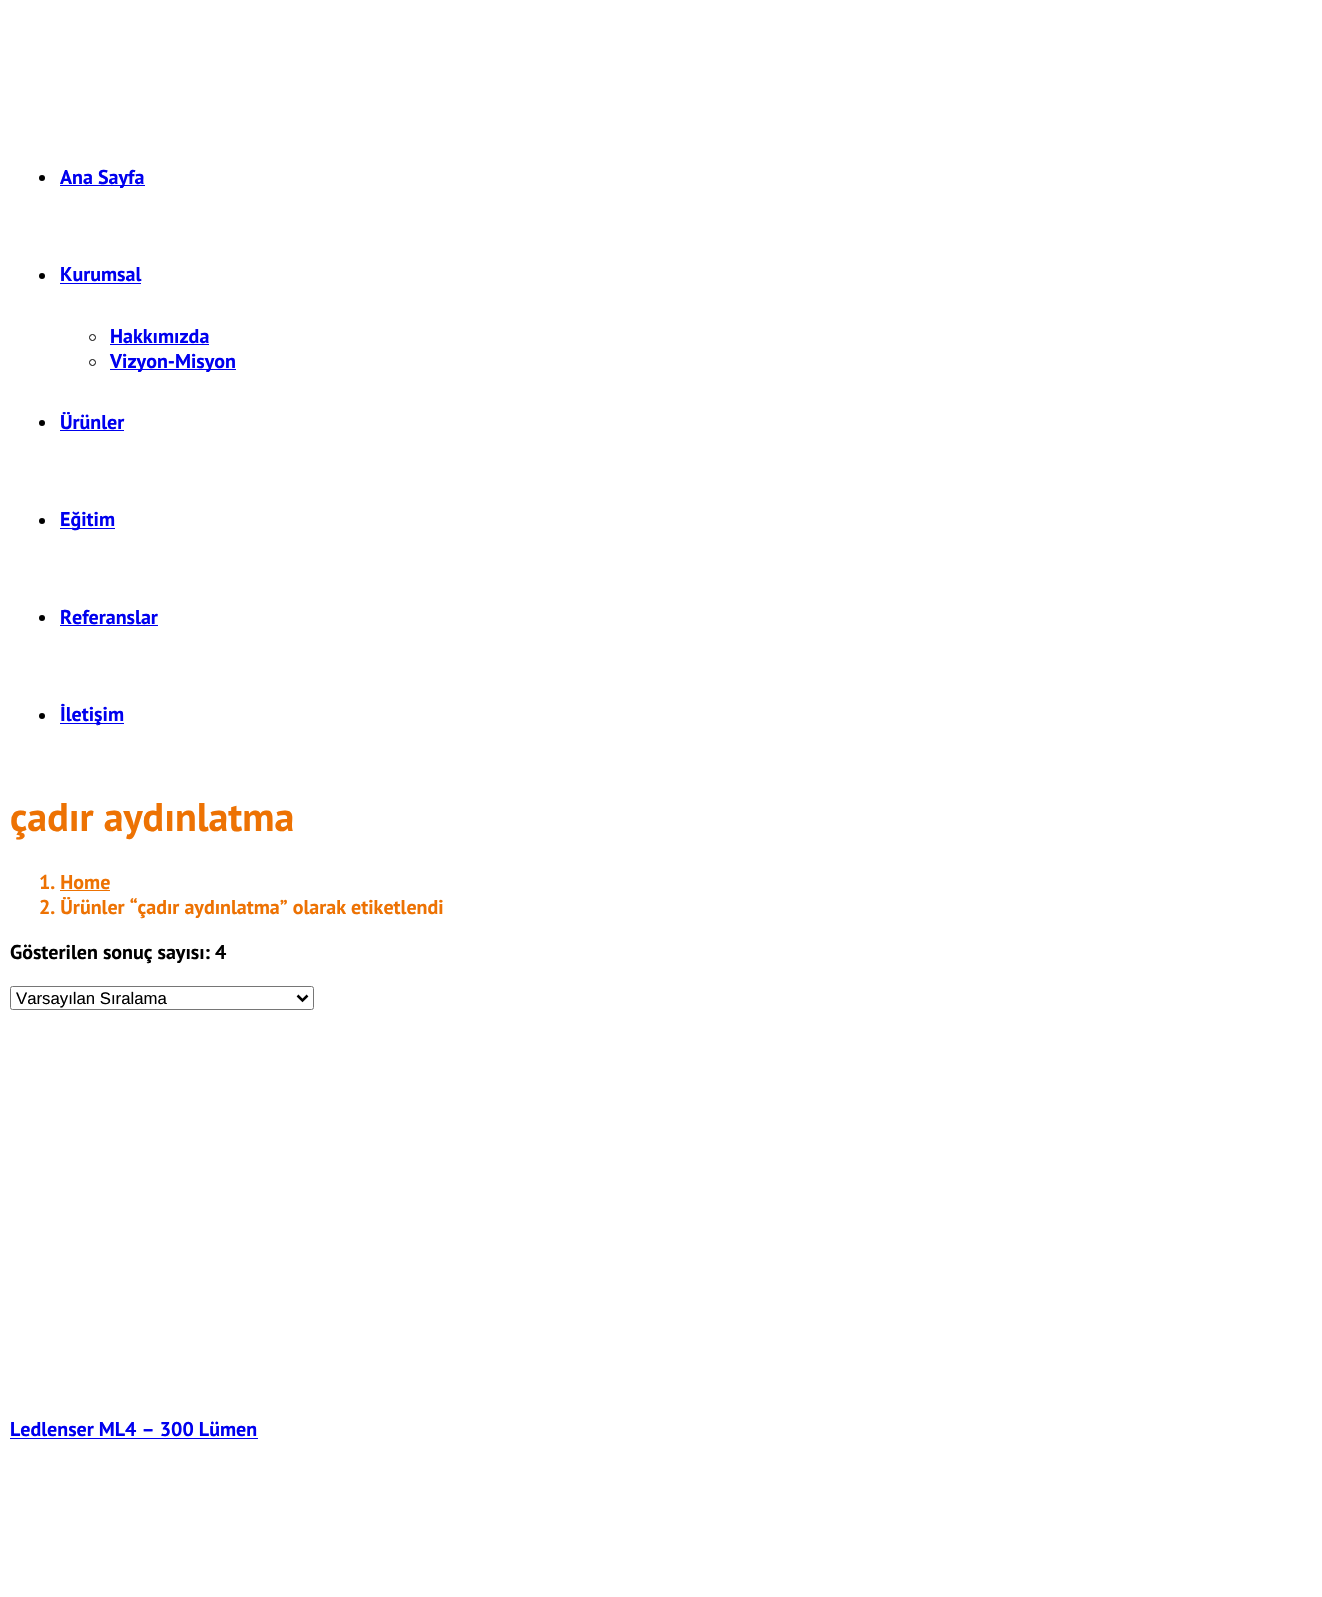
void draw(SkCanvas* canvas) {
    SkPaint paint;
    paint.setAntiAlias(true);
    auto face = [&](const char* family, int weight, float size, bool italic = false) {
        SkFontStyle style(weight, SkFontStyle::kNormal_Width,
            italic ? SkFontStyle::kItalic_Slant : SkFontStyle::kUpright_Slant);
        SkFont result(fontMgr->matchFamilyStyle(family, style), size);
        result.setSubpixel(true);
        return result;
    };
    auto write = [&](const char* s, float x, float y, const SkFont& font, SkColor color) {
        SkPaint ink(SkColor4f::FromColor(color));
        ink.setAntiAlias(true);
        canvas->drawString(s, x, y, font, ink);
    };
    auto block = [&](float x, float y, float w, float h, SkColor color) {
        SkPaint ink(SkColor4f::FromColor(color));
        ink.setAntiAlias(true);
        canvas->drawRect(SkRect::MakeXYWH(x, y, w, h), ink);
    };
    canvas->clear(SK_ColorWHITE);
    paint.setColor(SK_ColorBLACK);
    canvas->drawCircle(42, 178, 3, paint);
    block(60, 185, 85, 1, SkColorSetRGB(0, 0, 238));
    auto kFont1 = face("PT Sans", 700, 20);
    write("Ana Sayfa", 60, 184, kFont1, SkColorSetRGB(0, 0, 238));
    canvas->drawCircle(42, 276, 3, paint);
    write("Kurumsal", 60, 281, kFont1, SkColorSetRGB(0, 0, 238));
    block(60, 283, 81, 1, SkColorSetRGB(0, 0, 238));
    paint.setStyle(SkPaint::kStroke_Style);
    paint.setStrokeWidth(1);
    canvas->drawCircle(92.5f, 337.5f, 3, paint);
    write("Hakkımızda", 110, 343, kFont1, SkColorSetRGB(0, 0, 238));
    block(110, 344, 99, 1, SkColorSetRGB(0, 0, 238));
    canvas->drawCircle(92.5f, 362.5f, 3, paint);
    block(110, 369, 126, 1, SkColorSetRGB(0, 0, 238));
    write("Vizyon-Misyon", 110, 368, kFont1, SkColorSetRGB(0, 0, 238));
    paint.setStyle(SkPaint::kFill_Style);
    canvas->drawCircle(42, 423, 3, paint);
    write("Ürünler", 60, 429, kFont1, SkColorSetRGB(0, 0, 238));
    block(60, 430, 64, 1, SkColorSetRGB(0, 0, 238));
    canvas->drawCircle(42, 521, 3, paint);
    block(60, 528, 55, 1, SkColorSetRGB(0, 0, 238));
    write("Eğitim", 60, 526, kFont1, SkColorSetRGB(0, 0, 238));
    canvas->drawCircle(42, 618, 3, paint);
    write("Referanslar", 60, 624, kFont1, SkColorSetRGB(0, 0, 238));
    block(60, 625, 98, 1, SkColorSetRGB(0, 0, 238));
    canvas->drawCircle(42, 716, 3, paint);
    block(60, 723, 64, 1, SkColorSetRGB(0, 0, 238));
    write("İletişim", 60, 721, kFont1, SkColorSetRGB(0, 0, 238));
    auto kFont2 = face("PT Sans", 700, 40);
    write("çadır aydınlatma", 10, 831, kFont2, SkColorSetRGB(237, 114, 3));
    write("1. Home", 39, 889, kFont1, SkColorSetRGB(237, 114, 3));
    block(60, 890, 50, 1, SkColorSetRGB(237, 114, 3));
    write("2. Ürünler “çadır aydınlatma” olarak etiketlendi", 39, 914, kFont1, SkColorSetRGB(237, 114, 3));
    write("Gösterilen sonuç sayısı: 4", 10, 959, kFont1, SK_ColorBLACK);
    paint.setStyle(SkPaint::kStroke_Style);
    paint.setColor(SkColorSetRGB(118, 118, 118));
    canvas->drawRoundRect(SkRect::MakeXYWH(10.5f, 986.5f, 303, 23), 2, 2, paint);
    paint.setStrokeWidth(2.5f);
    paint.setColor(SK_ColorBLACK);
    canvas->drawPath(SkPathBuilder().moveTo(297.5f, 995.5f).lineTo(302.5f, 1000.5f).lineTo(307.5f, 995.5f).detach(), paint);
    auto kFont3 = face("Liberation Sans", 400, 16.75f);
    write("Varsayılan Sıralama", 16, 1004, kFont3, SK_ColorBLACK);
    write("Ledlenser ML4 – 300 Lümen", 10, 1436, kFont1, SkColorSetRGB(0, 0, 238));
    block(10, 1438, 248, 1, SkColorSetRGB(0, 0, 238));
}
